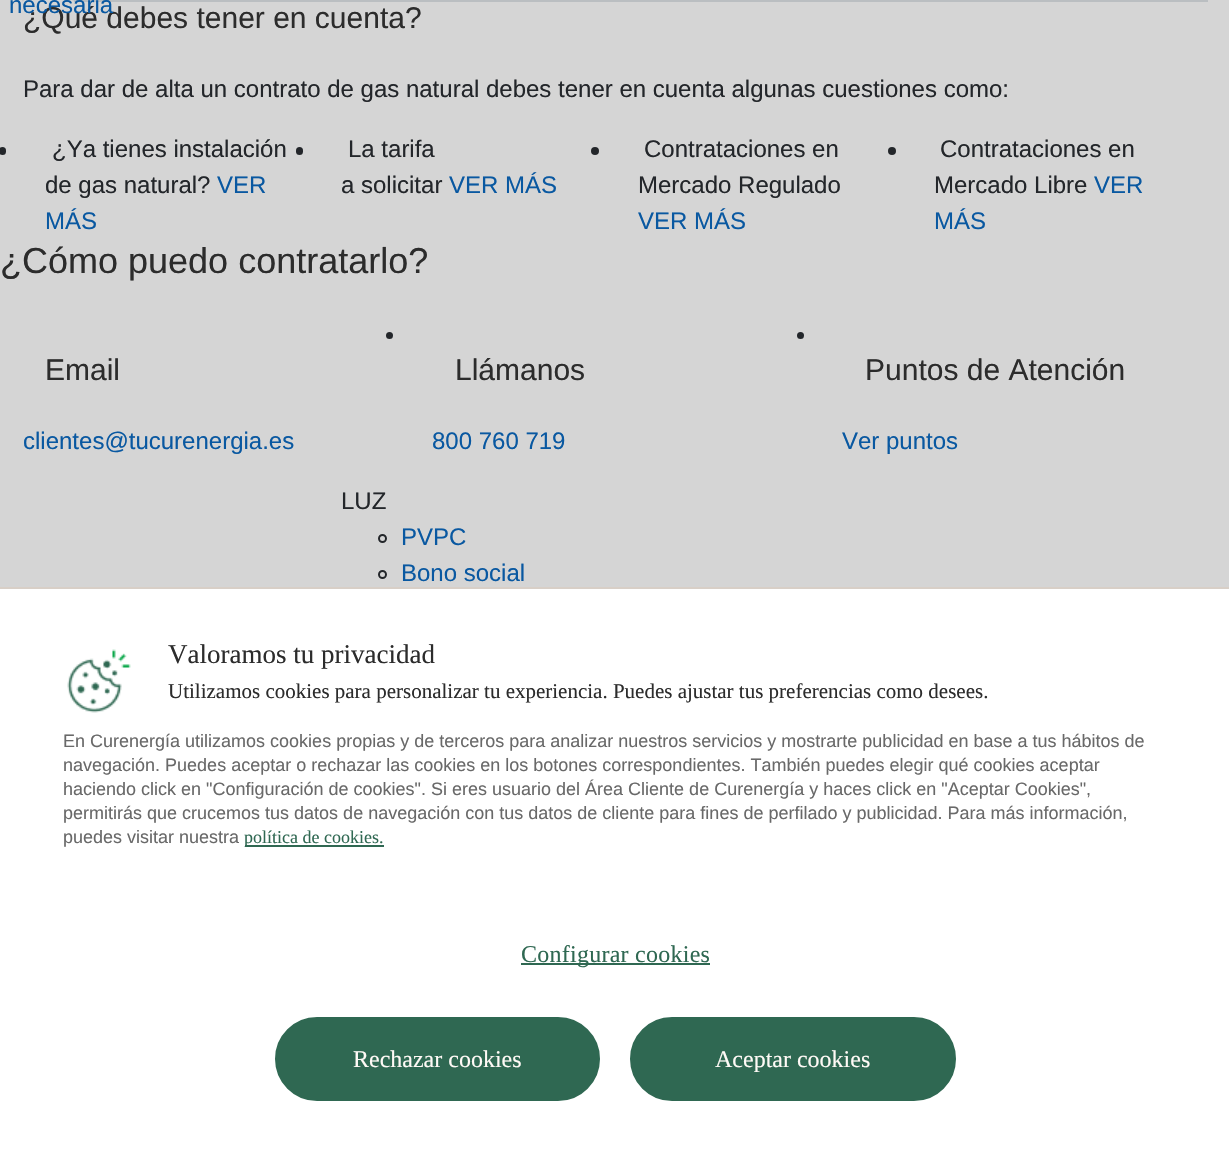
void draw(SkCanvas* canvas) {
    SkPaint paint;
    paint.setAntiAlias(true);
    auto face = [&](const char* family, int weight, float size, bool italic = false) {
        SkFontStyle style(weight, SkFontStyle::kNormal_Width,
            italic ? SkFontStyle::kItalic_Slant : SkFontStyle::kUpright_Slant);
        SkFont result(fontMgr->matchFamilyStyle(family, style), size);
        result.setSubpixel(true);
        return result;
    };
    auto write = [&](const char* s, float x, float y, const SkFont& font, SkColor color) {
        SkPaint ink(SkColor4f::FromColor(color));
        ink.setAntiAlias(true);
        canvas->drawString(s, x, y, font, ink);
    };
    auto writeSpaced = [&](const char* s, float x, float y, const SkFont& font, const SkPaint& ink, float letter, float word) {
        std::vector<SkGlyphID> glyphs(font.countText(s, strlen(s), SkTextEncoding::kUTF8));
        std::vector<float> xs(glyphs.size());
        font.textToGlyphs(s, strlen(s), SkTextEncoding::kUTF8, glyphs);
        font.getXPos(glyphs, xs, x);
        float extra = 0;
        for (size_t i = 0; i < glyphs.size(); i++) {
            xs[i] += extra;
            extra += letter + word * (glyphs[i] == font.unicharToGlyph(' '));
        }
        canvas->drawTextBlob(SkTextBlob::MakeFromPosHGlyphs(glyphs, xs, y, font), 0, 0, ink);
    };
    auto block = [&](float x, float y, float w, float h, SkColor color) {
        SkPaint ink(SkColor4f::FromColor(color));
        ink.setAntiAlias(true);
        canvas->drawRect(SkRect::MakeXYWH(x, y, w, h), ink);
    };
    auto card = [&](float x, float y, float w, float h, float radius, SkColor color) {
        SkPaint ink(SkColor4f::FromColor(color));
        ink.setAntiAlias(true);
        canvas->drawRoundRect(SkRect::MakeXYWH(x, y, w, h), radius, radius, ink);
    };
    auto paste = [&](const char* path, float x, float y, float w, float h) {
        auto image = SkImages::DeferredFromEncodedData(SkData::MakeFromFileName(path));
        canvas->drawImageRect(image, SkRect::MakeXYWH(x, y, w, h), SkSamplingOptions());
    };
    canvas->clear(SkColorSetRGB(213, 213, 213));
    block(74, 0, 1134, 2, SkColorSetRGB(186, 190, 193));
    paint.setColor(SkColorSetRGB(186, 190, 193));
    canvas->drawPath(SkPathBuilder().moveTo(72, -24).lineTo(73.5f, -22).lineTo(73.5f, 1.5f).lineTo(72, 0).lineTo(72, -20).cubicTo(72, -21, 71.5f, -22, 71, -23).close().detach(), paint);
    paint.setColor(SkColorSetRGB(213, 213, 213));
    canvas->drawPath(SkPathBuilder().moveTo(74, 2).lineTo(72, 0).lineTo(24, 0).lineTo(22, 2).close().detach(), paint);
    paint.setColor(SkColorSetRGB(186, 190, 193));
    canvas->drawPath(SkPathBuilder().moveTo(22.5f, 1.5f).lineTo(22.5f, -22).lineTo(24, -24).lineTo(25, -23).cubicTo(24.5f, -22, 24, -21, 24, -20).lineTo(24, 0).close().detach(), paint);
    auto kFont1 = face("Liberation Sans", 400, 30);
    write("¿Qué debes tener en cuenta?", 23, 28, kFont1, SkColorSetRGB(44, 44, 44));
    auto kFont2 = face("Liberation Sans", 400, 24);
    write("necesaria", 9, 13, kFont2, SkColorSetRGB(9, 88, 161));
    write("Para dar de alta un contrato de gas natural debes tener en cuenta algunas cuestiones como:", 23, 97, kFont2, SkColorSetRGB(35, 38, 42));
    card(-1, 147, 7, 8, 3.5f, SkColorSetRGB(35, 38, 42));
    write("¿Ya tienes instalación", 52, 157, kFont2, SkColorSetRGB(35, 38, 42));
    write("de gas natural?", 45, 193, kFont2, SkColorSetRGB(35, 38, 42));
    write("VER", 217, 193, kFont2, SkColorSetRGB(9, 88, 161));
    write("MÁS", 45, 229, kFont2, SkColorSetRGB(9, 88, 161));
    card(296, 147, 7, 8, 3.5f, SkColorSetRGB(35, 38, 42));
    write("La tarifa", 348, 157, kFont2, SkColorSetRGB(35, 38, 42));
    write("a solicitar", 341, 193, kFont2, SkColorSetRGB(35, 38, 42));
    write("VER MÁS", 449, 193, kFont2, SkColorSetRGB(9, 88, 161));
    paint.setColor(SkColorSetRGB(35, 38, 42));
    canvas->drawCircle(595, 151, 4, paint);
    write("Contrataciones en", 644, 157, kFont2, SkColorSetRGB(35, 38, 42));
    write("Mercado Regulado", 638, 193, kFont2, SkColorSetRGB(35, 38, 42));
    write("VER MÁS", 638, 229, kFont2, SkColorSetRGB(9, 88, 161));
    canvas->drawCircle(892, 151, 4, paint);
    write("Contrataciones en", 940, 157, kFont2, SkColorSetRGB(35, 38, 42));
    write("Mercado Libre", 934, 193, kFont2, SkColorSetRGB(35, 38, 42));
    write("VER", 1094, 193, kFont2, SkColorSetRGB(9, 88, 161));
    write("MÁS", 934, 229, kFont2, SkColorSetRGB(9, 88, 161));
    auto kFont3 = face("Liberation Sans", 400, 36);
    write("¿Cómo puedo contratarlo?", 0, 273, kFont3, SkColorSetRGB(44, 44, 44));
    write("Email", 45, 380, kFont1, SkColorSetRGB(44, 44, 44));
    write("clientes@tucurenergia.es", 23, 449, kFont2, SkColorSetRGB(9, 88, 161));
    canvas->drawCircle(389.5f, 335.5f, 3.5f, paint);
    write("Llámanos", 455, 380, kFont1, SkColorSetRGB(44, 44, 44));
    write("800 760 719", 432, 449, kFont2, SkColorSetRGB(9, 88, 161));
    canvas->drawCircle(800.5f, 335.5f, 3.5f, paint);
    write("Puntos de Atención", 865, 380, kFont1, SkColorSetRGB(44, 44, 44));
    write("Ver puntos", 842, 449, kFont2, SkColorSetRGB(9, 88, 161));
    write("LUZ", 341, 509, kFont2, SkColorSetRGB(35, 38, 42));
    paint.setStyle(SkPaint::kStroke_Style);
    paint.setStrokeWidth(2);
    canvas->drawCircle(382.5f, 538.5f, 3.5f, paint);
    write("PVPC", 401, 545, kFont2, SkColorSetRGB(9, 88, 161));
    canvas->drawCircle(382.5f, 574.5f, 3.5f, paint);
    write("Bono social", 401, 581, kFont2, SkColorSetRGB(9, 88, 161));
    block(0, 589, 1229, 560, SK_ColorWHITE);
    block(0, 587, 1229, 2, SkColorSetRGB(216, 207, 199));
    auto kFont4 = face("Liberation Serif", 400, 27);
    write("Valoramos tu privacidad", 168, 663, kFont4, SkColorSetRGB(44, 44, 44));
    auto kFont5 = face("Liberation Serif", 400, 21);
    write("Utilizamos cookies para personalizar tu experiencia. Puedes ajustar tus preferencias como desees.", 168, 698, kFont5, SkColorSetRGB(44, 44, 44));
    auto kFont6 = face("Liberation Sans", 400, 18);
    write("En Curenergía utilizamos cookies propias y de terceros para analizar nuestros servicios y mostrarte publicidad en base a tus hábitos de", 63, 747, kFont6, SkColorSetRGB(105, 105, 105));
    write("navegación. Puedes aceptar o rechazar las cookies en los botones correspondientes. También puedes elegir qué cookies aceptar", 63, 771, kFont6, SkColorSetRGB(105, 105, 105));
    write("haciendo click en \"Configuración de cookies\". Si eres usuario del Área Cliente de Curenergía y haces click en \"Aceptar Cookies\",", 63, 795, kFont6, SkColorSetRGB(105, 105, 105));
    write("permitirás que crucemos tus datos de navegación con tus datos de cliente para fines de perfilado y publicidad. Para más información,", 63, 819, kFont6, SkColorSetRGB(105, 105, 105));
    write("puedes visitar nuestra", 63, 843, kFont6, SkColorSetRGB(105, 105, 105));
    block(245, 845, 139, 2, SkColorSetRGB(47, 104, 82));
    auto kFont7 = face("Liberation Serif", 400, 18);
    write("política de cookies.", 244, 843, kFont7, SkColorSetRGB(47, 104, 82));
    paste("pic1.png", 67, 649, 64, 64);
    block(521, 963, 189, 2, SkColorSetRGB(47, 104, 82));
    auto kFont8 = face("Liberation Serif", 400, 24);
    paint.setStyle(SkPaint::kFill_Style);
    paint.setColor(SkColorSetRGB(47, 104, 82));
    writeSpaced("Configurar cookies", 521, 962, kFont8, paint, 0.25f, 0);
    canvas->drawRoundRect(SkRect::MakeXYWH(276, 1018, 323, 82), 41, 41, paint);
    paint.setStyle(SkPaint::kStroke_Style);
    canvas->drawRoundRect(SkRect::MakeXYWH(276, 1018, 323, 82), 41, 41, paint);
    write("Rechazar cookies", 353, 1067, kFont8, SkColorSetRGB(255, 250, 246));
    paint.setStyle(SkPaint::kFill_Style);
    canvas->drawRoundRect(SkRect::MakeXYWH(631, 1018, 324, 82), 41, 41, paint);
    paint.setStyle(SkPaint::kStroke_Style);
    canvas->drawRoundRect(SkRect::MakeXYWH(631, 1018, 324, 82), 41, 41, paint);
    write("Aceptar cookies", 715, 1067, kFont8, SkColorSetRGB(255, 250, 246));
}
